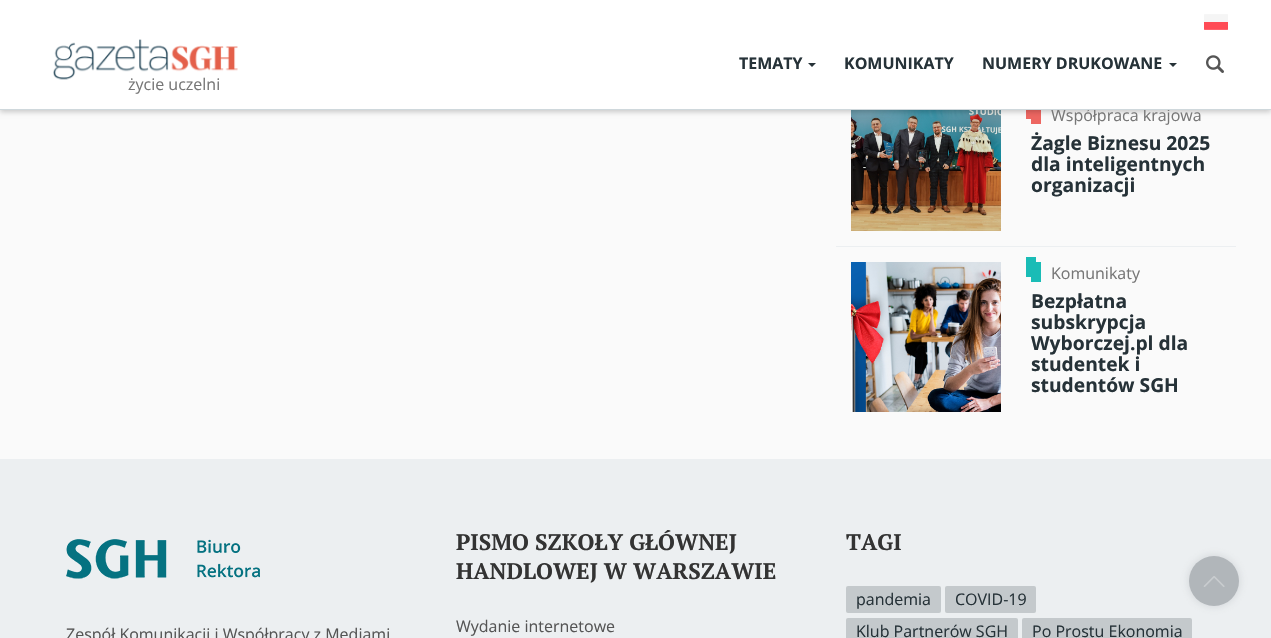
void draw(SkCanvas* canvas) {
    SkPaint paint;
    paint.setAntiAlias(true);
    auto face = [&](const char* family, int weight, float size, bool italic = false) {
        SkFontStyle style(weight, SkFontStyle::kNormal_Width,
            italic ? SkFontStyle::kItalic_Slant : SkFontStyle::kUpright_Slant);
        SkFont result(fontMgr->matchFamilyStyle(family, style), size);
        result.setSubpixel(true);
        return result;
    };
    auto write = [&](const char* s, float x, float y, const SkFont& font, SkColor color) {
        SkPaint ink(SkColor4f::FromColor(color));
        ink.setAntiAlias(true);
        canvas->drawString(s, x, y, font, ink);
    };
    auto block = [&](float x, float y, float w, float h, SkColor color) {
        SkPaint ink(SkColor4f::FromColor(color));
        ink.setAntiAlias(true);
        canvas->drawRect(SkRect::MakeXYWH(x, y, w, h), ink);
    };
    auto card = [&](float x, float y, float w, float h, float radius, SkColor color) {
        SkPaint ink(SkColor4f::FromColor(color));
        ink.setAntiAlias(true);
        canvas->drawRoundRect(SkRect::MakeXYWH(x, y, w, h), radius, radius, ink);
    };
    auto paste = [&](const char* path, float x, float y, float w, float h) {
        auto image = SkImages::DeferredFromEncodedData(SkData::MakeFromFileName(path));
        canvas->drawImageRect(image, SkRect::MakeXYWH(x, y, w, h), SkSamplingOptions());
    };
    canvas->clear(SkColorSetRGB(250, 250, 250));
    paste("pic4.png", 851, 110, 150, 121);
    block(1031, 110, 10, 14, SkColorSetRGB(237, 102, 97));
    block(1026, 110, 5, 9, SkColorSetRGB(237, 102, 97));
    paint.setColor(SkColorSetARGB(51, 0, 0, 0));
    paint.setMaskFilter(SkMaskFilter::MakeBlur(kNormal_SkBlurStyle, 2.5f));
    canvas->drawRect(SkRect::MakeXYWH(0, 2, 1271, 110), paint);
    paint.setMaskFilter(nullptr);
    auto kFont1 = face("Open Sans", 400, 16);
    write("Współpraca krajowa", 1051, 121, kFont1, SkColorSetRGB(119, 119, 119));
    block(0, 0, 1271, 109, SK_ColorWHITE);
    block(0, 109, 1271, 1, SkColorSetRGB(207, 216, 220));
    auto kFont2 = face("Open Sans", 700, 16);
    write("TEMATY", 739, 69, kFont2, SkColorSetRGB(38, 50, 56));
    paint.setColor(SkColorSetRGB(38, 50, 56));
    canvas->drawPath(SkPathBuilder().moveTo(808, 63).lineTo(816, 63).lineTo(812, 67).close().detach(), paint);
    write("KOMUNIKATY", 844, 69, kFont2, SkColorSetRGB(38, 50, 56));
    write("NUMERY DRUKOWANE", 982, 69, kFont2, SkColorSetRGB(38, 50, 56));
    canvas->drawPath(SkPathBuilder().moveTo(1169, 63).lineTo(1177, 63).lineTo(1173, 67).close().detach(), paint);
    paste("pic1.png", 1206, 55, 18, 18);
    paste("pic2.png", 1204, 14, 24, 16);
    paste("pic3.png", 53, 39, 185, 41);
    write("życie uczelni", 128, 90, kFont1, SkColorSetRGB(119, 119, 119));
    auto kFont3 = face("Open Sans", 700, 19.25f);
    write("Żagle Biznesu 2025", 1031, 150, kFont3, SkColorSetRGB(38, 50, 56));
    write("dla inteligentnych", 1031, 171, kFont3, SkColorSetRGB(38, 50, 56));
    write("organizacji", 1031, 192, kFont3, SkColorSetRGB(38, 50, 56));
    block(836, 246, 400, 1, SkColorSetRGB(236, 239, 241));
    paste("pic5.png", 851, 262, 150, 150);
    block(1031, 262, 10, 20, SkColorSetRGB(26, 188, 182));
    block(1026, 257, 10, 20, SkColorSetRGB(26, 188, 182));
    write("Komunikaty", 1051, 279, kFont1, SkColorSetRGB(119, 119, 119));
    write("Bezpłatna", 1031, 308, kFont3, SkColorSetRGB(38, 50, 56));
    write("subskrypcja", 1031, 329, kFont3, SkColorSetRGB(38, 50, 56));
    write("Wyborczej.pl dla", 1031, 350, kFont3, SkColorSetRGB(38, 50, 56));
    write("studentek i", 1031, 371, kFont3, SkColorSetRGB(38, 50, 56));
    write("studentów SGH", 1031, 392, kFont3, SkColorSetRGB(38, 50, 56));
    block(0, 459, 1271, 179, SkColorSetRGB(236, 239, 241));
    paste("pic6.png", 66, 539, 194, 40);
    write("Zespół Komunikacji i Współpracy z Mediami", 66, 640, kFont1, SkColorSetRGB(85, 85, 85));
    auto kFont4 = face("PT Serif", 700, 22.4f);
    write("PISMO SZKOŁY GŁÓWNEJ", 456, 550, kFont4, SkColorSetRGB(51, 51, 51));
    write("HANDLOWEJ W WARSZAWIE", 456, 579, kFont4, SkColorSetRGB(51, 51, 51));
    write("Wydanie internetowe", 456, 632, kFont1, SkColorSetRGB(85, 85, 85));
    write("TAGI", 846, 550, kFont4, SkColorSetRGB(51, 51, 51));
    card(846, 586, 95, 27, 2, SkColorSetRGB(196, 201, 204));
    write("pandemia", 856, 605, kFont1, SkColorSetRGB(38, 50, 56));
    card(945, 586, 91, 27, 2, SkColorSetRGB(196, 201, 204));
    write("COVID-19", 955, 605, kFont1, SkColorSetRGB(38, 50, 56));
    card(846, 618, 172, 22, 2, SkColorSetRGB(196, 201, 204));
    write("Klub Partnerów SGH", 856, 637, kFont1, SkColorSetRGB(38, 50, 56));
    card(1022, 618, 170, 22, 2, SkColorSetRGB(196, 201, 204));
    write("Po Prostu Ekonomia", 1032, 637, kFont1, SkColorSetRGB(38, 50, 56));
    paint.setColor(SkColorSetARGB(128, 177, 182, 186));
    paint.setMaskFilter(SkMaskFilter::MakeBlur(kNormal_SkBlurStyle, 5));
    canvas->drawRoundRect(SkRect::MakeXYWH(1189, 556, 50, 50), 25, 25, paint);
    paint.setMaskFilter(nullptr);
    paint.setColor(SkColorSetRGB(177, 182, 186));
    canvas->drawCircle(1214, 581, 25, paint);
    paste("pic7.png", 1203, 576, 22, 11);
}
